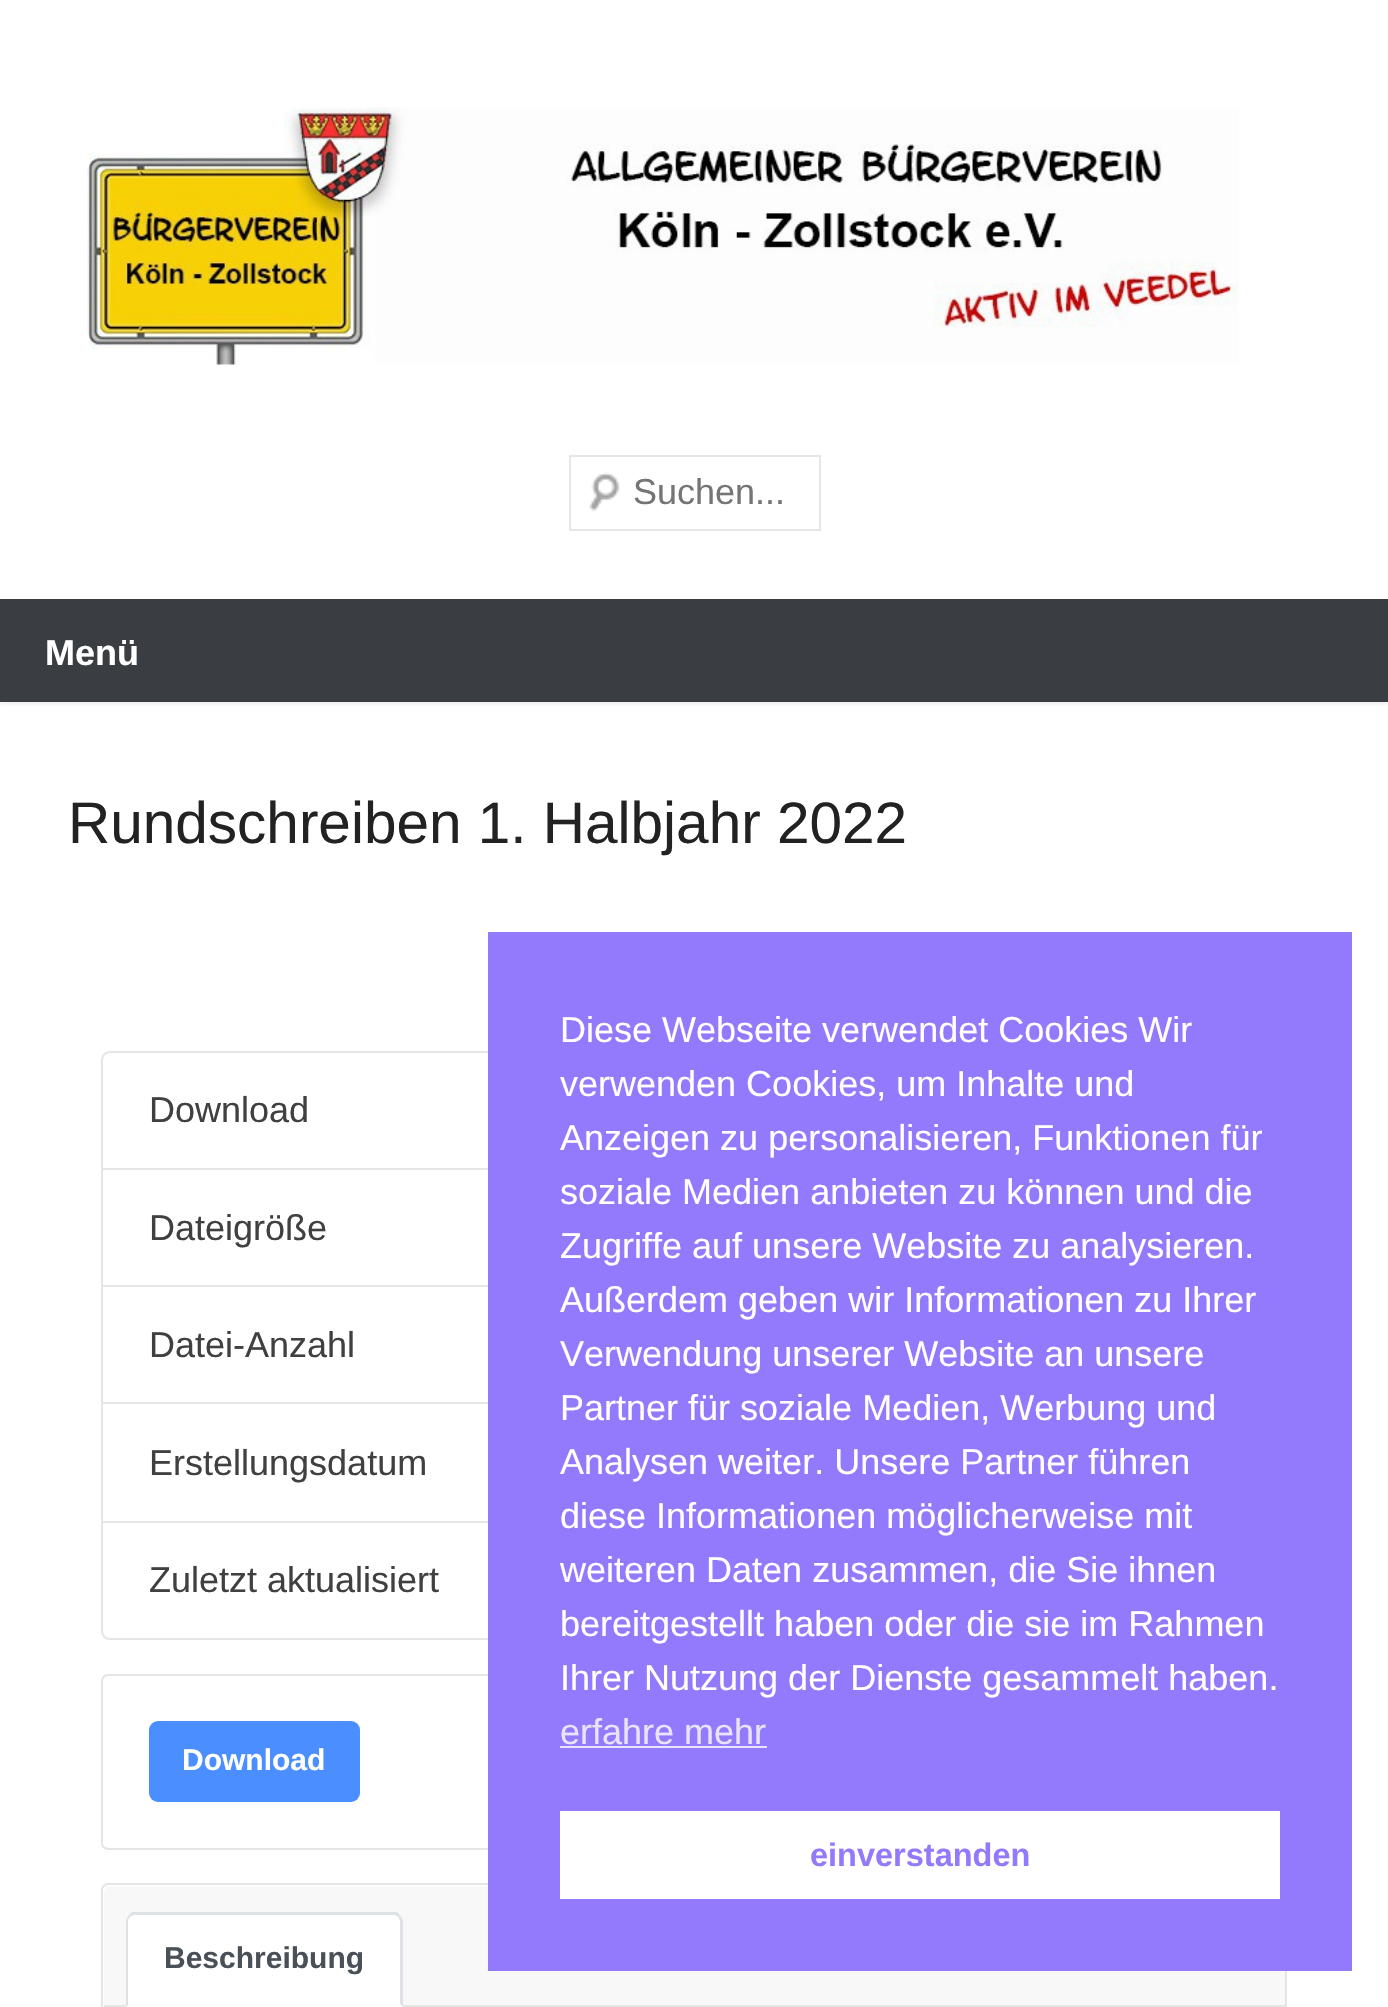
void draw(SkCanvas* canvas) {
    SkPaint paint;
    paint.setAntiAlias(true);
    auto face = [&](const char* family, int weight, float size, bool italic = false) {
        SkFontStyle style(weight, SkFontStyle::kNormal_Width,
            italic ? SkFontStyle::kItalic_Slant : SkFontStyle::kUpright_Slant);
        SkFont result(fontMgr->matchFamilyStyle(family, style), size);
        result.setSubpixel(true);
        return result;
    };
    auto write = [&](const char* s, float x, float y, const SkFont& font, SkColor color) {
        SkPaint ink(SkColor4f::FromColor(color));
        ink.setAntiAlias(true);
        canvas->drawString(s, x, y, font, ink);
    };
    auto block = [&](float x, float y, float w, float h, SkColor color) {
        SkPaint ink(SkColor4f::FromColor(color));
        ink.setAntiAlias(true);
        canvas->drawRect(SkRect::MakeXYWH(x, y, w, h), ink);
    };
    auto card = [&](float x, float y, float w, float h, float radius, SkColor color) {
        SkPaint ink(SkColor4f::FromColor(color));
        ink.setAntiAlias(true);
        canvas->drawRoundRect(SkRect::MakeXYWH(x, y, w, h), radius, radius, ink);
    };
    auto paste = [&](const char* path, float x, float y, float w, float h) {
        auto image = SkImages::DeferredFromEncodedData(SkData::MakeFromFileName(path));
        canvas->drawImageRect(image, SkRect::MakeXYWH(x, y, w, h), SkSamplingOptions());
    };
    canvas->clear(SK_ColorWHITE);
    paste("pic1.png", 87, 107, 1152, 258);
    paste("pic2.png", 589, 472, 31, 40);
    paint.setStyle(SkPaint::kStroke_Style);
    paint.setStrokeWidth(2);
    paint.setColor(SkColorSetRGB(230, 230, 230));
    canvas->drawRect(SkRect::MakeXYWH(570, 456, 250, 74), paint);
    auto kFont1 = face("Liberation Sans", 400, 36);
    write("Suchen...", 633, 504, kFont1, SkColorSetRGB(117, 117, 117));
    block(0, 599, 1388, 103, SkColorSetRGB(58, 61, 65));
    canvas->save();
    canvas->clipRect(SkRect::MakeXYWH(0, 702, 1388, 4));
    paint.setStyle(SkPaint::kFill_Style);
    paint.setColor(SkColorSetARGB(26, 64, 64, 64));
    paint.setMaskFilter(SkMaskFilter::MakeBlur(kNormal_SkBlurStyle, 2));
    canvas->drawRect(SkRect::MakeXYWH(0, 601, 1388, 103), paint);
    paint.setMaskFilter(nullptr);
    canvas->restore();
    auto kFont2 = face("Liberation Sans", 700, 36);
    write("Menü", 45, 665, kFont2, SK_ColorWHITE);
    auto kFont3 = face("Liberation Sans", 400, 58.5f);
    write("Rundschreiben 1. Halbjahr 2022", 68, 843, kFont3, SkColorSetRGB(34, 34, 34));
    paint.setStyle(SkPaint::kStroke_Style);
    paint.setColor(SkColorSetRGB(229, 229, 229));
    canvas->drawPath(SkPathBuilder().moveTo(110, 1052).lineTo(1278, 1052).cubicTo(1282.5f, 1052, 1286, 1055.5f, 1286, 1060).lineTo(1286, 1169).lineTo(102, 1169).lineTo(102, 1060).cubicTo(102, 1055.5f, 105.5f, 1052, 110, 1052).close().detach(), paint);
    write("Download", 149, 1122, kFont1, SkColorSetRGB(64, 64, 64));
    canvas->drawRect(SkRect::MakeXYWH(102, 1169, 1184, 117), paint);
    write("Dateigröße", 149, 1240, kFont1, SkColorSetRGB(64, 64, 64));
    canvas->drawRect(SkRect::MakeXYWH(102, 1286, 1184, 117), paint);
    write("Datei-Anzahl", 149, 1357, kFont1, SkColorSetRGB(64, 64, 64));
    canvas->drawRect(SkRect::MakeXYWH(102, 1403, 1184, 119), paint);
    write("Erstellungsdatum", 149, 1475, kFont1, SkColorSetRGB(64, 64, 64));
    paint.setStyle(SkPaint::kFill_Style);
    paint.setColor(SK_ColorWHITE);
    canvas->drawPath(SkPathBuilder().moveTo(102, 1522).lineTo(1286, 1522).lineTo(1286, 1631).cubicTo(1286, 1635.5f, 1282.5f, 1639, 1278, 1639).lineTo(110, 1639).cubicTo(105.5f, 1639, 102, 1635.5f, 102, 1631).close().detach(), paint);
    paint.setStyle(SkPaint::kStroke_Style);
    paint.setColor(SkColorSetRGB(229, 229, 229));
    canvas->drawPath(SkPathBuilder().moveTo(102, 1522).lineTo(1286, 1522).lineTo(1286, 1631).cubicTo(1286, 1635.5f, 1282.5f, 1639, 1278, 1639).lineTo(110, 1639).cubicTo(105.5f, 1639, 102, 1635.5f, 102, 1631).close().detach(), paint);
    write("Zuletzt aktualisiert", 149, 1592, kFont1, SkColorSetRGB(64, 64, 64));
    canvas->drawRoundRect(SkRect::MakeXYWH(102, 1675, 1184, 174), 6, 6, paint);
    card(149, 1721, 211, 81, 9, SkColorSetRGB(74, 142, 255));
    auto kFont4 = face("Liberation Sans", 700, 30);
    write("Download", 182, 1770, kFont4, SK_ColorWHITE);
    canvas->drawRoundRect(SkRect::MakeXYWH(102, 1884, 1184, 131), 6, 6, paint);
    paint.setStyle(SkPaint::kFill_Style);
    paint.setColor(SkColorSetRGB(248, 248, 248));
    canvas->drawPath(SkPathBuilder().moveTo(111, 1886).lineTo(1278, 1886).cubicTo(1282, 1886, 1285, 1889, 1285, 1893).lineTo(1285, 2007).lineTo(104, 2007).lineTo(104, 1893).cubicTo(104, 1889, 107, 1886, 111, 1886).close().detach(), paint);
    block(104, 2005, 1181, 2, SkColorSetRGB(229, 229, 229));
    paint.setColor(SK_ColorWHITE);
    canvas->drawPath(SkPathBuilder().moveTo(135, 1913).lineTo(394, 1913).cubicTo(399, 1913, 403, 1917, 403, 1922).lineTo(403, 2007).lineTo(126, 2007).lineTo(126, 1922).cubicTo(126, 1917, 130, 1913, 135, 1913).close().detach(), paint);
    paint.setColor(SkColorSetRGB(222, 226, 230));
    canvas->drawPath(SkPathBuilder().moveTo(135, 1915).cubicTo(133, 1915, 131, 1916, 130, 1917).lineTo(129, 1915).lineTo(132, 1912).lineTo(397, 1912).lineTo(400, 1915).lineTo(398, 1917).cubicTo(397, 1916, 396, 1915, 394, 1915).close().detach(), paint);
    canvas->drawPath(SkPathBuilder().moveTo(403, 1920).lineTo(403, 2007).lineTo(400, 2004).lineTo(400, 1922).cubicTo(400, 1920, 399, 1918, 398, 1917).lineTo(400, 1915).close().detach(), paint);
    paint.setColor(SK_ColorWHITE);
    canvas->drawPath(SkPathBuilder().moveTo(403, 2007).lineTo(400, 2004).lineTo(400, 2005).lineTo(128, 2005).lineTo(126, 2007).close().detach(), paint);
    paint.setColor(SkColorSetRGB(222, 226, 230));
    canvas->drawPath(SkPathBuilder().moveTo(126, 2007).lineTo(128, 2005).lineTo(128, 1920).lineTo(130, 1917).lineTo(129, 1915).cubicTo(127, 1917, 126, 1920, 126, 1922).close().detach(), paint);
    write("Beschreibung", 164, 1968, kFont4, SkColorSetRGB(73, 80, 87));
    block(488, 932, 864, 1039, SkColorSetRGB(147, 122, 252));
    write("Diese Webseite verwendet Cookies Wir", 560, 1042, kFont1, SK_ColorWHITE);
    write("verwenden Cookies, um Inhalte und", 560, 1096, kFont1, SK_ColorWHITE);
    write("Anzeigen zu personalisieren, Funktionen für", 560, 1150, kFont1, SK_ColorWHITE);
    write("soziale Medien anbieten zu können und die", 560, 1204, kFont1, SK_ColorWHITE);
    write("Zugriffe auf unsere Website zu analysieren.", 560, 1258, kFont1, SK_ColorWHITE);
    write("Außerdem geben wir Informationen zu Ihrer", 560, 1312, kFont1, SK_ColorWHITE);
    write("Verwendung unserer Website an unsere", 560, 1366, kFont1, SK_ColorWHITE);
    write("Partner für soziale Medien, Werbung und", 560, 1420, kFont1, SK_ColorWHITE);
    write("Analysen weiter. Unsere Partner führen", 560, 1474, kFont1, SK_ColorWHITE);
    write("diese Informationen möglicherweise mit", 560, 1528, kFont1, SK_ColorWHITE);
    write("weiteren Daten zusammen, die Sie ihnen", 560, 1582, kFont1, SK_ColorWHITE);
    write("bereitgestellt haben oder die sie im Rahmen", 560, 1636, kFont1, SK_ColorWHITE);
    write("Ihrer Nutzung der Dienste gesammelt haben.", 560, 1690, kFont1, SK_ColorWHITE);
    write("erfahre mehr", 560, 1744, kFont1, SkColorSetRGB(233, 228, 254));
    block(560, 1746, 207, 2, SkColorSetRGB(233, 228, 254));
    block(560, 1811, 720, 88, SK_ColorWHITE);
    auto kFont5 = face("Liberation Sans", 700, 32.5f);
    write("einverstanden", 810, 1866, kFont5, SkColorSetRGB(147, 122, 252));
}
